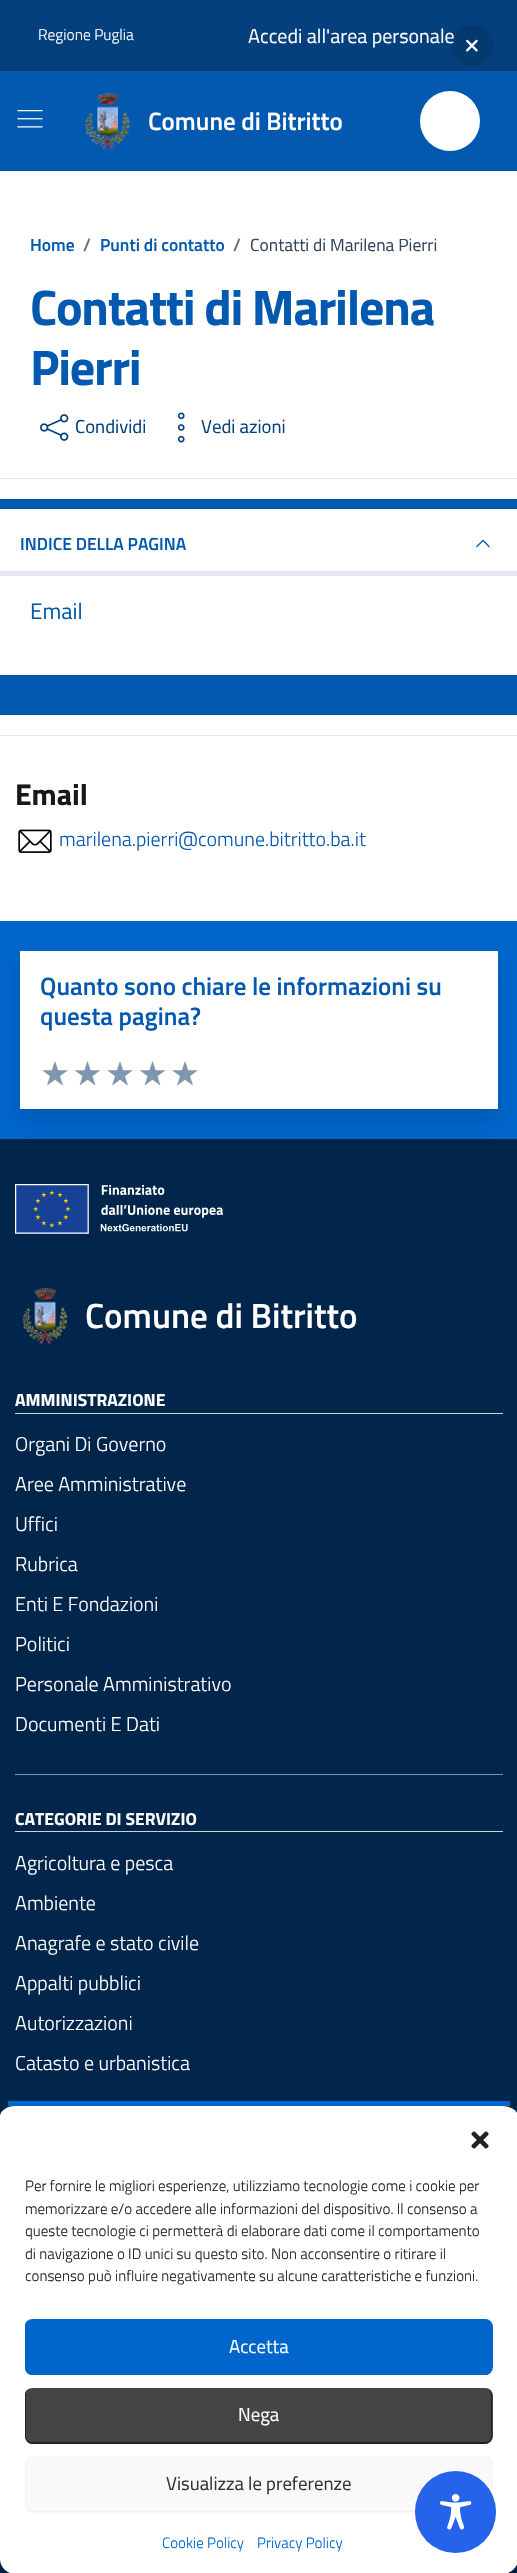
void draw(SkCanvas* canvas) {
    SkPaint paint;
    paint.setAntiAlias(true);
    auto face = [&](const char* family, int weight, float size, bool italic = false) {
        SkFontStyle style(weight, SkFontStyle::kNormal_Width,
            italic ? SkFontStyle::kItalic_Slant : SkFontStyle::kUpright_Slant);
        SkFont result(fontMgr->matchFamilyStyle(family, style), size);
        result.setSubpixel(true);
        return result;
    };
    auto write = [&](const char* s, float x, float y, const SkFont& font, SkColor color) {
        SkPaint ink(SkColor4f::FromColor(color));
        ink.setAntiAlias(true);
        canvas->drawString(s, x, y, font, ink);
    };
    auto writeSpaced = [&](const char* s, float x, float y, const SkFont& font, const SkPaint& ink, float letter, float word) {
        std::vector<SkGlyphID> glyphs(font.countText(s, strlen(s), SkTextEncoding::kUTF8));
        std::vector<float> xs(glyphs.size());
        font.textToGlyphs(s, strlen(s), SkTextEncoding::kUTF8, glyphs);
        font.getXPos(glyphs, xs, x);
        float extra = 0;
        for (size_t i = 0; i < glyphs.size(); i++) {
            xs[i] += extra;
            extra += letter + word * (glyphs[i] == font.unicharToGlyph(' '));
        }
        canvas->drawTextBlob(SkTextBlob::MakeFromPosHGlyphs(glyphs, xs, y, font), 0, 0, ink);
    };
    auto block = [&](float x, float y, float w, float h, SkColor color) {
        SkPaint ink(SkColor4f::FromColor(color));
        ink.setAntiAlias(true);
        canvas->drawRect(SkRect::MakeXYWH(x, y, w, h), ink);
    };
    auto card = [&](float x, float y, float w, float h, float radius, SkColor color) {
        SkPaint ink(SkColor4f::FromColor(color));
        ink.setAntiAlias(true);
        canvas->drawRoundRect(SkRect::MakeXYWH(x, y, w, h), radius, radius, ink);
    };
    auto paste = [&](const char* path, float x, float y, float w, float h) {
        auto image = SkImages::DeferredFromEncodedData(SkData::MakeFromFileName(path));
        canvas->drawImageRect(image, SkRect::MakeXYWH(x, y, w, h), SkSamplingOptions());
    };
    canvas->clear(SK_ColorWHITE);
    block(0, 0, 517, 71, SkColorSetRGB(3, 64, 125));
    auto kFont1 = face("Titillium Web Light", 300, 15.5f);
    write("Regione Puglia", 38, 40, kFont1, SK_ColorWHITE);
    auto kFont2 = face("Titillium Web", 400, 20);
    write("Accedi all'area personale", 248, 43, kFont2, SK_ColorWHITE);
    block(0, 71, 517, 100, SkColorSetRGB(3, 89, 176));
    paste("pic1.png", 17, 110, 26, 18);
    paste("pic2.png", 84, 93, 47, 57);
    auto kFont3 = face("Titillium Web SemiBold", 600, 25);
    write("Comune di Bitritto", 148, 130, kFont3, SK_ColorWHITE);
    paint.setColor(SK_ColorWHITE);
    canvas->drawCircle(450, 121, 30, paint);
    card(451, 25, 42, 41, 20.5f, SkColorSetARGB(26, 0, 0, 0));
    paste("pic3.png", 466, 39, 12, 13);
    auto kFont4 = face("Titillium Web SemiBold", 600, 17.5f);
    write("Home", 30, 251, kFont4, SkColorSetRGB(3, 89, 176));
    write("/", 83, 251, kFont4, SkColorSetRGB(93, 112, 131));
    write("Punti di contatto", 100, 251, kFont4, SkColorSetRGB(3, 89, 176));
    write("/", 233, 251, kFont4, SkColorSetRGB(93, 112, 131));
    auto kFont5 = face("Titillium Web", 400, 17.5f);
    write("Contatti di Marilena Pierri", 250, 251, kFont5, SkColorSetRGB(48, 71, 95));
    auto kFont6 = face("Titillium Web", 700, 50);
    paint.setColor(SkColorSetRGB(3, 89, 176));
    writeSpaced("Contatti di Marilena", 30, 325, kFont6, paint, -1.25f, 0);
    writeSpaced("Pierri", 30, 385, kFont6, paint, -1.25f, 0);
    paste("pic4.png", 40, 414, 29, 27);
    auto kFont7 = face("Titillium Web", 400, 18.75f);
    write("Condividi", 75, 433, kFont7, SkColorSetRGB(3, 64, 125));
    paste("pic5.png", 177, 412, 8, 31);
    write("Vedi azioni", 201, 433, kFont7, SkColorSetRGB(3, 64, 125));
    block(0, 478, 517, 1, SkColorSetRGB(233, 230, 242));
    block(0, 499, 517, 216, SkColorSetRGB(3, 89, 176));
    block(0, 509, 517, 166, SK_ColorWHITE);
    write("INDICE DELLA PAGINA", 20, 550, kFont4, SkColorSetRGB(3, 89, 176));
    paste("pic6.png", 476, 539, 14, 9);
    block(0, 571, 517, 5, SkColorSetRGB(233, 230, 242));
    auto kFont8 = face("Titillium Web", 400, 22.5f);
    write("Email", 30, 619, kFont8, SkColorSetRGB(3, 89, 176));
    block(0, 735, 517, 1, SkColorSetRGB(233, 230, 242));
    auto kFont9 = face("Titillium Web", 700, 30);
    write("Email", 15, 805, kFont9, SkColorSetRGB(25, 25, 25));
    paste("pic7.png", 18, 829, 34, 24);
    auto kFont10 = face("Titillium Web Light", 300, 20);
    write("marilena.pierri@comune.bitritto.ba.it", 59, 846, kFont10, SkColorSetRGB(3, 89, 176));
    block(0, 921, 517, 218, SkColorSetRGB(0, 102, 204));
    block(0, 1139, 517, 1434, SkColorSetRGB(2, 38, 75));
    paint.setColor(SkColorSetARGB(38, 0, 0, 0));
    paint.setMaskFilter(SkMaskFilter::MakeBlur(kNormal_SkBlurStyle, 10));
    canvas->drawRect(SkRect::MakeXYWH(20, 961, 478, 158), paint);
    paint.setMaskFilter(nullptr);
    block(20, 951, 478, 158, SK_ColorWHITE);
    write("Quanto sono chiare le informazioni su", 40, 995, kFont3, SkColorSetRGB(3, 89, 176));
    write("questa pagina?", 40, 1025, kFont3, SkColorSetRGB(3, 89, 176));
    paste("pic8.png", 42, 1061, 26, 25);
    paste("pic9.png", 74, 1061, 27, 25);
    paste("pic8.png", 107, 1061, 26, 25);
    paste("pic9.png", 139, 1061, 27, 25);
    paste("pic8.png", 172, 1061, 26, 25);
    paste("pic10.png", 15, 1184, 208, 50);
    paste("pic11.png", 22, 1288, 46, 57);
    auto kFont11 = face("Titillium Web SemiBold", 600, 35);
    write("Comune di Bitritto", 85, 1328, kFont11, SK_ColorWHITE);
    block(15, 1413, 488, 1, SkColorSetRGB(210, 210, 210));
    auto kFont12 = face("Titillium Web", 700, 17.5f);
    write("AMMINISTRAZIONE", 15, 1406, kFont12, SK_ColorWHITE);
    write("Organi Di Governo", 15, 1451, kFont10, SK_ColorWHITE);
    write("Aree Amministrative", 15, 1491, kFont10, SK_ColorWHITE);
    write("Uffici", 15, 1531, kFont10, SK_ColorWHITE);
    write("Rubrica", 15, 1571, kFont10, SK_ColorWHITE);
    write("Enti E Fondazioni", 15, 1611, kFont10, SK_ColorWHITE);
    write("Politici", 15, 1651, kFont10, SK_ColorWHITE);
    write("Personale Amministrativo", 15, 1691, kFont10, SK_ColorWHITE);
    write("Documenti E Dati", 15, 1731, kFont10, SK_ColorWHITE);
    block(15, 1774, 488, 1, SkColorSetRGB(129, 147, 165));
    block(15, 1831, 488, 1, SkColorSetRGB(210, 210, 210));
    write("CATEGORIE DI SERVIZIO", 15, 1825, kFont12, SK_ColorWHITE);
    write("Agricoltura e pesca", 15, 1870, kFont10, SK_ColorWHITE);
    write("Ambiente", 15, 1910, kFont10, SK_ColorWHITE);
    write("Anagrafe e stato civile", 15, 1950, kFont10, SK_ColorWHITE);
    write("Appalti pubblici", 15, 1990, kFont10, SK_ColorWHITE);
    write("Autorizzazioni", 15, 2030, kFont10, SK_ColorWHITE);
    write("Catasto e urbanistica", 15, 2070, kFont10, SK_ColorWHITE);
    canvas->save();
    canvas->clipPath(SkPathBuilder(SkPathFillType::kEvenOdd).moveTo(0, 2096).lineTo(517, 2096).lineTo(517, 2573).lineTo(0, 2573).close().moveTo(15, 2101).lineTo(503, 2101).cubicTo(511.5f, 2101, 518, 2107.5f, 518, 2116).lineTo(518, 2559).cubicTo(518, 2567.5f, 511.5f, 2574, 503, 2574).lineTo(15, 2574).cubicTo(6.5f, 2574, 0, 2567.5f, 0, 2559).lineTo(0, 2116).cubicTo(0, 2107.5f, 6.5f, 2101, 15, 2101).close().detach(), true);
    paint.setColor(SkColorSetARGB(59, 0, 0, 0));
    paint.setMaskFilter(SkMaskFilter::MakeBlur(kNormal_SkBlurStyle, 4));
    canvas->drawRoundRect(SkRect::MakeXYWH(0, 2109, 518, 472), 15, 15, paint);
    paint.setMaskFilter(nullptr);
    canvas->restore();
    paint.setColor(SK_ColorWHITE);
    canvas->drawPath(SkPathBuilder().moveTo(15, 2106).lineTo(502, 2106).cubicTo(511, 2106, 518, 2111, 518, 2116).lineTo(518, 2559).cubicTo(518, 2567, 511, 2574, 502, 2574).lineTo(15, 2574).cubicTo(7, 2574, 0, 2567, 0, 2559).lineTo(0, 2116).cubicTo(0, 2111, 7, 2106, 15, 2106).close().detach(), paint);
    block(8, 2101, 502, 5, SkColorSetRGB(0, 102, 204));
    paste("pic12.png", 471, 2131, 18, 18);
    auto kFont13 = face("Titillium Web Light", 300, 15);
    write("Per fornire le migliori esperienze, utilizziamo tecnologie come i cookie per", 25, 2191, kFont13, SkColorSetRGB(34, 34, 34));
    write("memorizzare e/o accedere alle informazioni del dispositivo. Il consenso a", 25, 2214, kFont13, SkColorSetRGB(34, 34, 34));
    write("queste tecnologie ci permetterà di elaborare dati come il comportamento", 25, 2236, kFont13, SkColorSetRGB(34, 34, 34));
    write("di navigazione o ID unici su questo sito. Non acconsentire o ritirare il", 25, 2259, kFont13, SkColorSetRGB(34, 34, 34));
    write("consenso può influire negativamente su alcune caratteristiche e funzioni.", 25, 2281, kFont13, SkColorSetRGB(34, 34, 34));
    card(25, 2319, 468, 56, 8, SkColorSetRGB(0, 102, 204));
    paint.setColor(SkColorSetRGB(0, 102, 204));
    canvas->drawPath(SkPathBuilder(SkPathFillType::kEvenOdd).moveTo(32, 2319).lineTo(485, 2319).cubicTo(489, 2319, 492, 2322, 492, 2326).lineTo(492, 2368).cubicTo(492, 2372, 489, 2375, 485, 2375).lineTo(32, 2375).cubicTo(28, 2375, 25, 2372, 25, 2368).lineTo(25, 2326).cubicTo(25, 2322, 28, 2319, 32, 2319).close().moveTo(32, 2319).lineTo(485, 2319).cubicTo(488, 2319, 491, 2322, 491, 2326).lineTo(491, 2368).cubicTo(491, 2371, 488, 2374, 485, 2374).lineTo(32, 2374).cubicTo(29, 2374, 26, 2371, 26, 2368).lineTo(26, 2326).cubicTo(26, 2322, 29, 2319, 32, 2319).close().detach(), paint);
    write("Accetta", 229, 2353, kFont7, SK_ColorWHITE);
    card(25, 2388, 468, 56, 8, SkColorSetRGB(68, 68, 68));
    paint.setColor(SkColorSetRGB(34, 34, 34));
    canvas->drawPath(SkPathBuilder(SkPathFillType::kEvenOdd).moveTo(32, 2388).lineTo(485, 2388).cubicTo(489, 2388, 492, 2391, 492, 2395).lineTo(492, 2436).cubicTo(492, 2440, 489, 2444, 485, 2444).lineTo(32, 2444).cubicTo(28, 2444, 25, 2440, 25, 2436).lineTo(25, 2395).cubicTo(25, 2391, 28, 2388, 32, 2388).close().moveTo(32, 2388).lineTo(485, 2388).cubicTo(488, 2388, 491, 2391, 491, 2395).lineTo(491, 2436).cubicTo(491, 2440, 488, 2442, 485, 2442).lineTo(32, 2442).cubicTo(29, 2442, 26, 2440, 26, 2436).lineTo(26, 2395).cubicTo(26, 2391, 29, 2388, 32, 2388).close().detach(), paint);
    write("Nega", 238, 2421, kFont7, SK_ColorWHITE);
    card(25, 2456, 468, 57, 8, SkColorSetRGB(249, 249, 249));
    paint.setColor(SkColorSetRGB(242, 242, 242));
    canvas->drawPath(SkPathBuilder(SkPathFillType::kEvenOdd).moveTo(32, 2456).lineTo(485, 2456).cubicTo(489, 2456, 492, 2460, 492, 2464).lineTo(492, 2505).cubicTo(492, 2509, 489, 2512, 485, 2512).lineTo(32, 2512).cubicTo(28, 2512, 25, 2509, 25, 2505).lineTo(25, 2464).cubicTo(25, 2460, 28, 2456, 32, 2456).close().moveTo(32, 2456).lineTo(485, 2456).cubicTo(488, 2456, 491, 2460, 491, 2464).lineTo(491, 2505).cubicTo(491, 2508, 488, 2511, 485, 2511).lineTo(32, 2511).cubicTo(29, 2511, 26, 2508, 26, 2505).lineTo(26, 2464).cubicTo(26, 2460, 29, 2456, 32, 2456).close().detach(), paint);
    write("Visualizza le preferenze", 166, 2490, kFont7, SkColorSetRGB(51, 51, 51));
    write("Cookie Policy", 162, 2548, kFont13, SkColorSetRGB(0, 102, 204));
    write("Privacy Policy", 257, 2548, kFont13, SkColorSetRGB(0, 102, 204));
    card(415, 2471, 81, 82, 40.5f, SkColorSetRGB(37, 99, 235));
    paste("pic13.png", 440, 2494, 32, 36);
}
